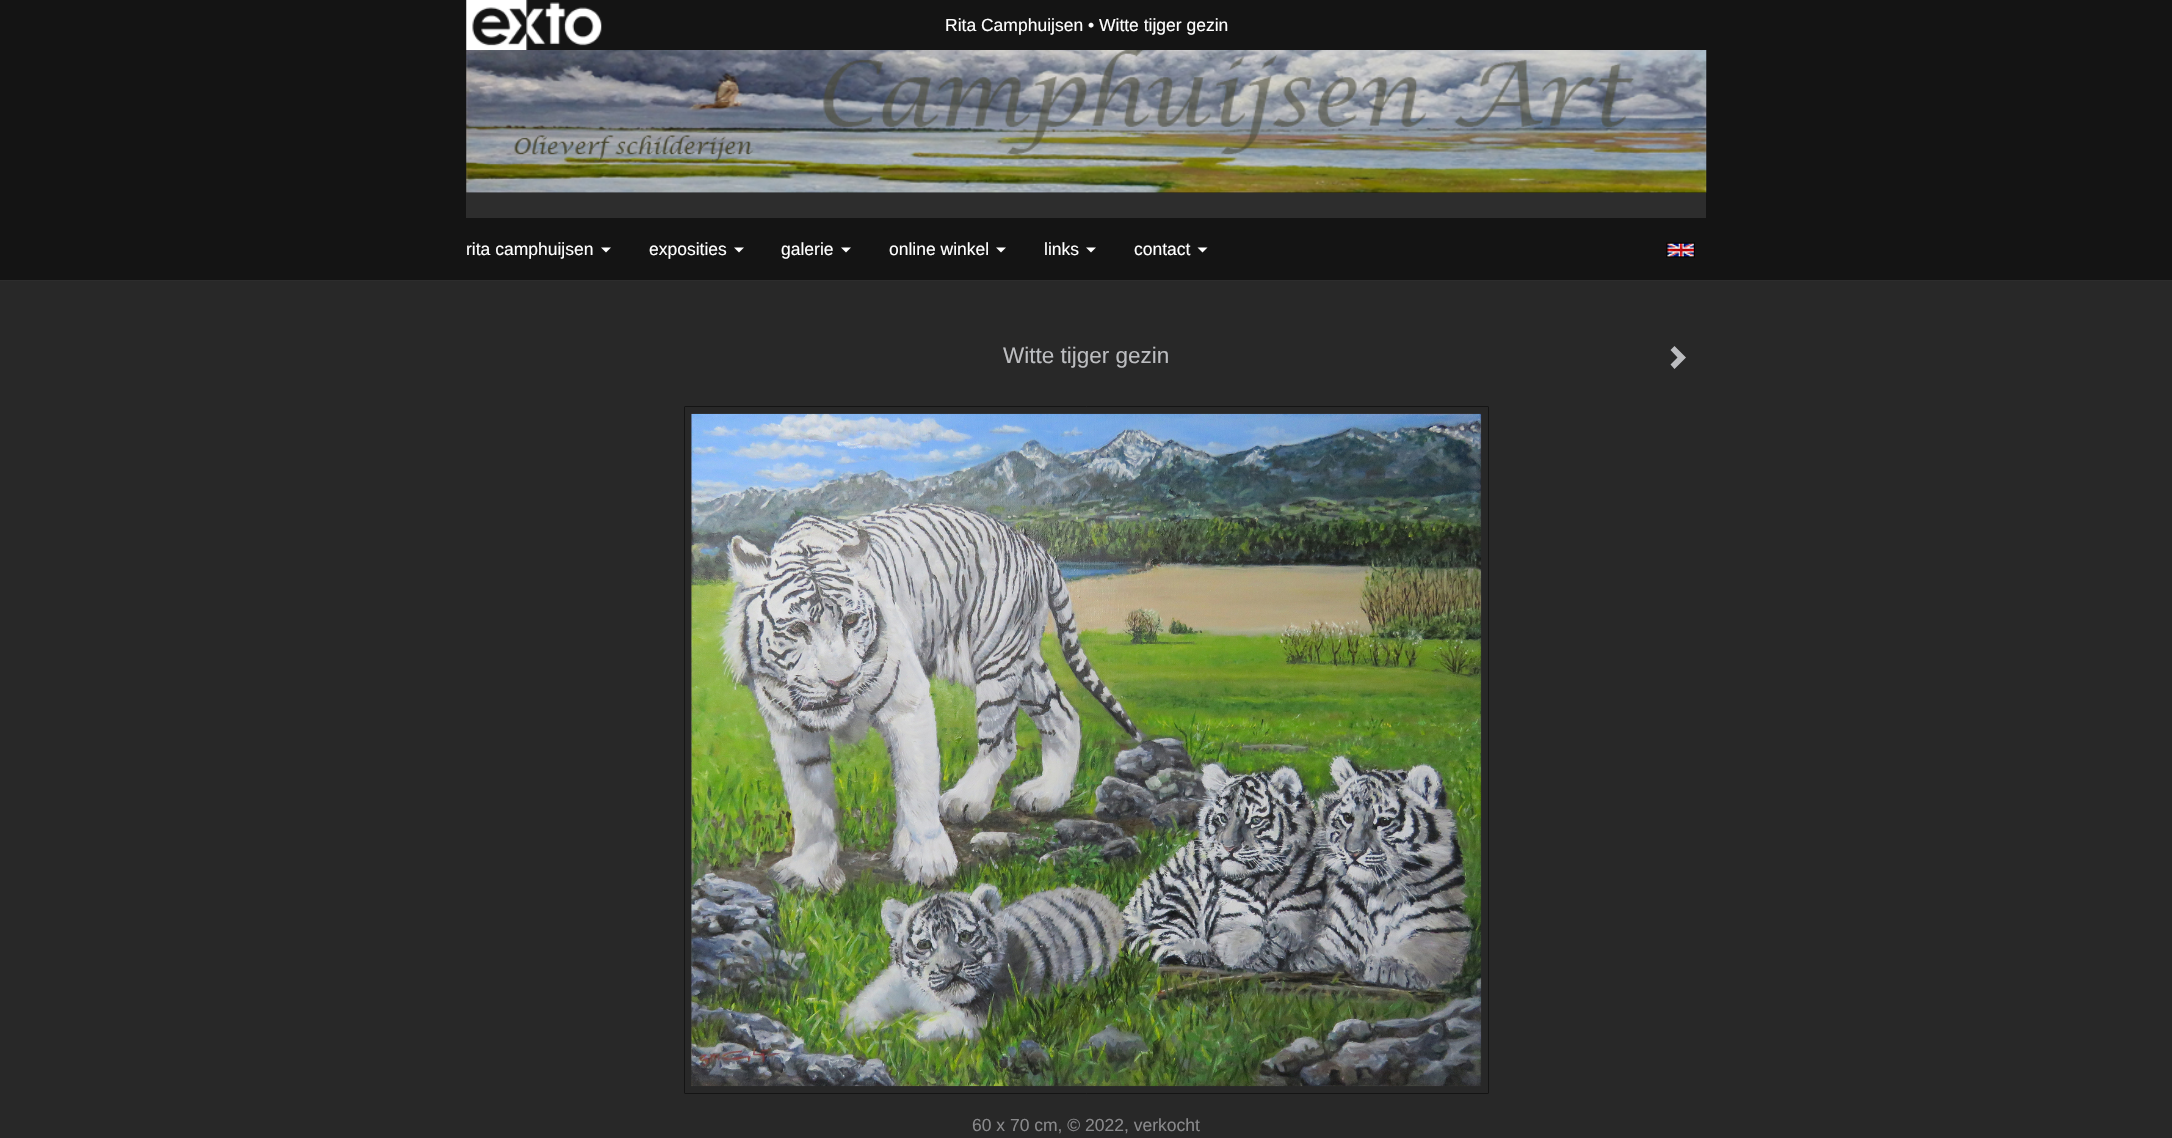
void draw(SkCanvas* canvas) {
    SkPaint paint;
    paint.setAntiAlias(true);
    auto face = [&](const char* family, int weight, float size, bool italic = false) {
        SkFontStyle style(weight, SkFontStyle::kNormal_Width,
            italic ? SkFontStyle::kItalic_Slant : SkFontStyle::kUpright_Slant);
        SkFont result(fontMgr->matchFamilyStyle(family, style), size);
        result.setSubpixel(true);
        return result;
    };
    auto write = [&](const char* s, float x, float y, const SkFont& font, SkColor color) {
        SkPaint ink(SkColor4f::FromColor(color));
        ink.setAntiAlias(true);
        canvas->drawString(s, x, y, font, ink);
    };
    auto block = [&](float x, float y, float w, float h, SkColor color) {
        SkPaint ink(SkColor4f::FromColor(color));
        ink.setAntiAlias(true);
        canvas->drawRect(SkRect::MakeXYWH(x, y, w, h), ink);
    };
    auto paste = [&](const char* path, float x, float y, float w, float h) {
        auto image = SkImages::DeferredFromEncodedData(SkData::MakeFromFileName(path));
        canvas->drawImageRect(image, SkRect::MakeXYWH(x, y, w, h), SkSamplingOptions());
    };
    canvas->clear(SkColorSetRGB(40, 40, 40));
    block(0, 0, 2172, 280, SkColorSetRGB(20, 20, 20));
    paste("pic1.png", 466, 0, 136, 50);
    auto kFont1 = face("Liberation Sans", 400, 17.5f);
    write("Rita Camphuijsen • Witte tijger gezin", 945, 31, kFont1, SK_ColorWHITE);
    paste("pic2.png", 466, 50, 1241, 143);
    block(466, 193, 1240, 25, SkColorSetRGB(45, 45, 45));
    block(0, 280, 2172, 1, SkColorSetRGB(45, 45, 45));
    write("rita camphuijsen", 466, 255, kFont1, SK_ColorWHITE);
    paint.setColor(SK_ColorWHITE);
    canvas->drawPath(SkPathBuilder().moveTo(601, 247.5f).lineTo(611, 247.5f).lineTo(606, 252.5f).close().detach(), paint);
    write("exposities", 649, 255, kFont1, SK_ColorWHITE);
    canvas->drawPath(SkPathBuilder().moveTo(734, 247.5f).lineTo(744, 247.5f).lineTo(739, 252.5f).close().detach(), paint);
    write("galerie", 781, 255, kFont1, SK_ColorWHITE);
    canvas->drawPath(SkPathBuilder().moveTo(841, 247.5f).lineTo(851, 247.5f).lineTo(846, 252.5f).close().detach(), paint);
    write("online winkel", 889, 255, kFont1, SK_ColorWHITE);
    canvas->drawPath(SkPathBuilder().moveTo(996, 247.5f).lineTo(1006, 247.5f).lineTo(1001, 252.5f).close().detach(), paint);
    write("links", 1044, 255, kFont1, SK_ColorWHITE);
    canvas->drawPath(SkPathBuilder().moveTo(1086, 247.5f).lineTo(1096, 247.5f).lineTo(1091, 252.5f).close().detach(), paint);
    write("contact", 1134, 255, kFont1, SK_ColorWHITE);
    canvas->drawPath(SkPathBuilder().moveTo(1197.5f, 247.5f).lineTo(1207.5f, 247.5f).lineTo(1202.5f, 252.5f).close().detach(), paint);
    paste("pic3.png", 1666, 242, 29, 16);
    auto kFont2 = face("Liberation Sans", 400, 22.5f);
    write("Witte tijger gezin", 1003, 363, kFont2, SkColorSetRGB(188, 189, 192));
    paint.setColor(SkColorSetRGB(188, 189, 192));
    canvas->drawPath(SkPathBuilder().moveTo(1686, 357.5f).lineTo(1674.5f, 369).lineTo(1670.5f, 364.5f).lineTo(1677.5f, 357.5f).lineTo(1670.5f, 350).lineTo(1674.5f, 346).close().detach(), paint);
    paint.setStyle(SkPaint::kStroke_Style);
    paint.setStrokeWidth(1);
    paint.setColor(SkColorSetRGB(20, 20, 20));
    canvas->drawRoundRect(SkRect::MakeXYWH(684.5f, 406.5f, 804, 687), 0.5f, 0.5f, paint);
    paste("pic4.png", 691, 413, 791, 674);
    write("60 x 70 cm, © 2022, verkocht", 972, 1131, kFont1, SkColorSetRGB(137, 137, 139));
}
